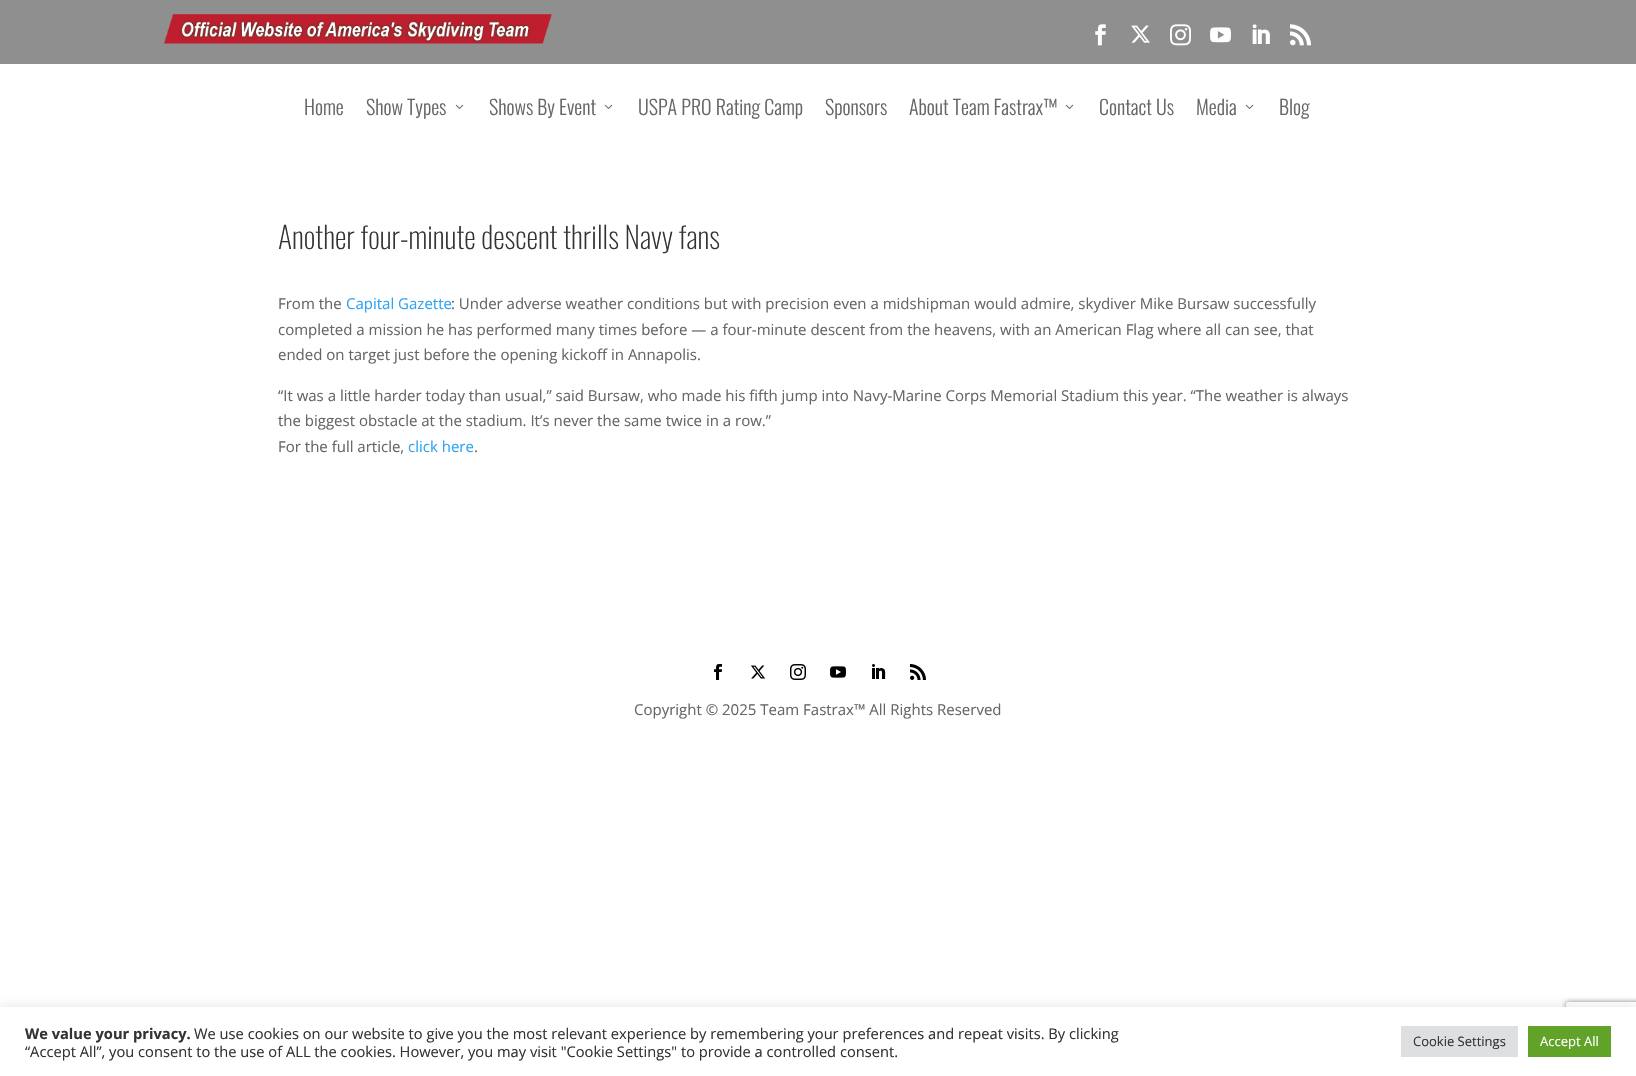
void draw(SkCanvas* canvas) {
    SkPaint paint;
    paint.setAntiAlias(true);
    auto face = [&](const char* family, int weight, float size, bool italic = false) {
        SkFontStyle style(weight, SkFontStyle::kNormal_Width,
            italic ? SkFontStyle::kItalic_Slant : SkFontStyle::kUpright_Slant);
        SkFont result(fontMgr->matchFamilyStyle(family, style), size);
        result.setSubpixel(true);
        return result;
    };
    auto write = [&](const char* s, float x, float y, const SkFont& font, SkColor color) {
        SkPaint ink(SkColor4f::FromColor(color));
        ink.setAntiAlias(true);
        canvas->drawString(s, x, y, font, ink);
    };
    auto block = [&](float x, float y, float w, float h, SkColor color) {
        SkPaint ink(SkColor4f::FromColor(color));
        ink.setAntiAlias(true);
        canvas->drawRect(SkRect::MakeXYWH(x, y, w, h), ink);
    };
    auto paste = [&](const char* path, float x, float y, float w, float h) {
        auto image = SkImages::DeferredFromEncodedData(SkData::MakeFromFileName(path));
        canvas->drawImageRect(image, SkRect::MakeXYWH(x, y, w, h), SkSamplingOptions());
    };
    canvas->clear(SK_ColorWHITE);
    block(0, 0, 1636, 64, SkColorSetRGB(143, 143, 143));
    paste("pic1.png", 164, 14, 388, 30);
    paste("pic2.png", 1095, 24, 11, 22);
    paste("pic3.png", 1131, 25, 19, 18);
    paste("pic4.png", 1170, 24, 21, 22);
    paste("pic5.png", 1210, 27, 21, 16);
    paste("pic6.png", 1252, 24, 18, 20);
    paste("pic7.png", 1290, 24, 21, 22);
    auto kFont1 = face("Oswald", 300, 20);
    write("Home", 304, 115, kFont1, SkColorSetRGB(102, 102, 102));
    write("Show Types", 366, 115, kFont1, SkColorSetRGB(102, 102, 102));
    paste("pic8.png", 455, 104, 9, 5);
    write("Shows By Event", 489, 115, kFont1, SkColorSetRGB(102, 102, 102));
    paste("pic8.png", 604, 104, 9, 5);
    write("USPA PRO Rating Camp", 638, 115, kFont1, SkColorSetRGB(102, 102, 102));
    write("Sponsors", 825, 115, kFont1, SkColorSetRGB(102, 102, 102));
    write("About Team Fastrax™", 909, 115, kFont1, SkColorSetRGB(102, 102, 102));
    paste("pic8.png", 1065, 104, 9, 5);
    write("Contact Us", 1099, 115, kFont1, SkColorSetRGB(102, 102, 102));
    write("Media", 1196, 115, kFont1, SkColorSetRGB(102, 102, 102));
    paste("pic8.png", 1245, 104, 9, 5);
    write("Blog", 1279, 115, kFont1, SkColorSetRGB(102, 102, 102));
    auto kFont2 = face("Oswald", 200, 30);
    write("Another four-minute descent thrills Navy fans", 278, 249, kFont2, SkColorSetRGB(51, 51, 51));
    auto kFont3 = face("Open Sans", 400, 15);
    write("From the", 278, 309, kFont3, SkColorSetRGB(102, 102, 102));
    write("Capital Gazette", 346, 309, kFont3, SkColorSetRGB(46, 163, 242));
    write(": Under adverse weather conditions but with precision even a midshipman would admire, skydiver Mike Bursaw successfully", 451, 309, kFont3, SkColorSetRGB(102, 102, 102));
    write("completed a mission he has performed many times before — a four-minute descent from the heavens, with an American Flag where all can see, that", 278, 335, kFont3, SkColorSetRGB(102, 102, 102));
    write("ended on target just before the opening kickoff in Annapolis.", 278, 360, kFont3, SkColorSetRGB(102, 102, 102));
    write("“It was a little harder today than usual,” said Bursaw, who made his fifth jump into Navy-Marine Corps Memorial Stadium this year. “The weather is always", 278, 401, kFont3, SkColorSetRGB(102, 102, 102));
    write("the biggest obstacle at the stadium. It’s never the same twice in a row.”", 278, 426, kFont3, SkColorSetRGB(102, 102, 102));
    write("For the full article,", 278, 452, kFont3, SkColorSetRGB(102, 102, 102));
    write("click here", 408, 452, kFont3, SkColorSetRGB(46, 163, 242));
    write(".", 474, 452, kFont3, SkColorSetRGB(102, 102, 102));
    paste("pic9.png", 714, 664, 8, 16);
    paste("pic10.png", 751, 665, 15, 14);
    paste("pic11.png", 790, 664, 16, 16);
    paste("pic12.png", 830, 666, 16, 12);
    paste("pic13.png", 872, 664, 14, 15);
    paste("pic14.png", 910, 664, 16, 16);
    write("Copyright © 2025 Team Fastrax™ All Rights Reserved", 634, 715, kFont3, SkColorSetRGB(102, 102, 102));
    canvas->save();
    canvas->clipPath(SkPathBuilder(SkPathFillType::kEvenOdd).moveTo(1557, 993).lineTo(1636, 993).lineTo(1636, 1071).lineTo(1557, 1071).close().moveTo(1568, 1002).lineTo(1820, 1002).cubicTo(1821, 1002, 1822, 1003, 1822, 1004).lineTo(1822, 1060).cubicTo(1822, 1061, 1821, 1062, 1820, 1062).lineTo(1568, 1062).cubicTo(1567, 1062, 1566, 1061, 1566, 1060).lineTo(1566, 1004).cubicTo(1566, 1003, 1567, 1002, 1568, 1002).close().detach(), true);
    paint.setColor(SkColorSetRGB(128, 128, 128));
    paint.setMaskFilter(SkMaskFilter::MakeBlur(kNormal_SkBlurStyle, 2.5f));
    canvas->drawRoundRect(SkRect::MakeXYWH(1566, 1002, 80, 60), 2, 2, paint);
    paint.setMaskFilter(nullptr);
    canvas->restore();
    paint.setColor(SkColorSetARGB(77, 172, 171, 171));
    paint.setMaskFilter(SkMaskFilter::MakeBlur(kNormal_SkBlurStyle, 5));
    canvas->drawRect(SkRect::MakeXYWH(0, 1006, 1636, 69), paint);
    paint.setMaskFilter(nullptr);
    block(0, 1007, 1636, 69, SK_ColorWHITE);
    auto kFont4 = face("Open Sans", 700, 14.67f);
    write("We value your privacy.", 25, 1039, kFont4, SkColorSetRGB(51, 51, 51));
    auto kFont5 = face("Open Sans", 400, 14.67f);
    write("We use cookies on our website to give you the most relevant experience by remembering your preferences and repeat visits. By clicking", 194, 1039, kFont5, SkColorSetRGB(51, 51, 51));
    write("“Accept All”, you consent to the use of ALL the cookies. However, you may visit \"Cookie Settings\" to provide a controlled consent.", 25, 1057, kFont5, SkColorSetRGB(51, 51, 51));
    block(1401, 1026, 117, 31, SkColorSetRGB(222, 223, 224));
    auto kFont6 = face("Open Sans", 400, 13);
    write("Cookie Settings", 1413, 1046, kFont6, SkColorSetRGB(51, 51, 51));
    block(1528, 1026, 83, 31, SkColorSetRGB(97, 162, 41));
    write("Accept All", 1540, 1046, kFont6, SK_ColorWHITE);
}
